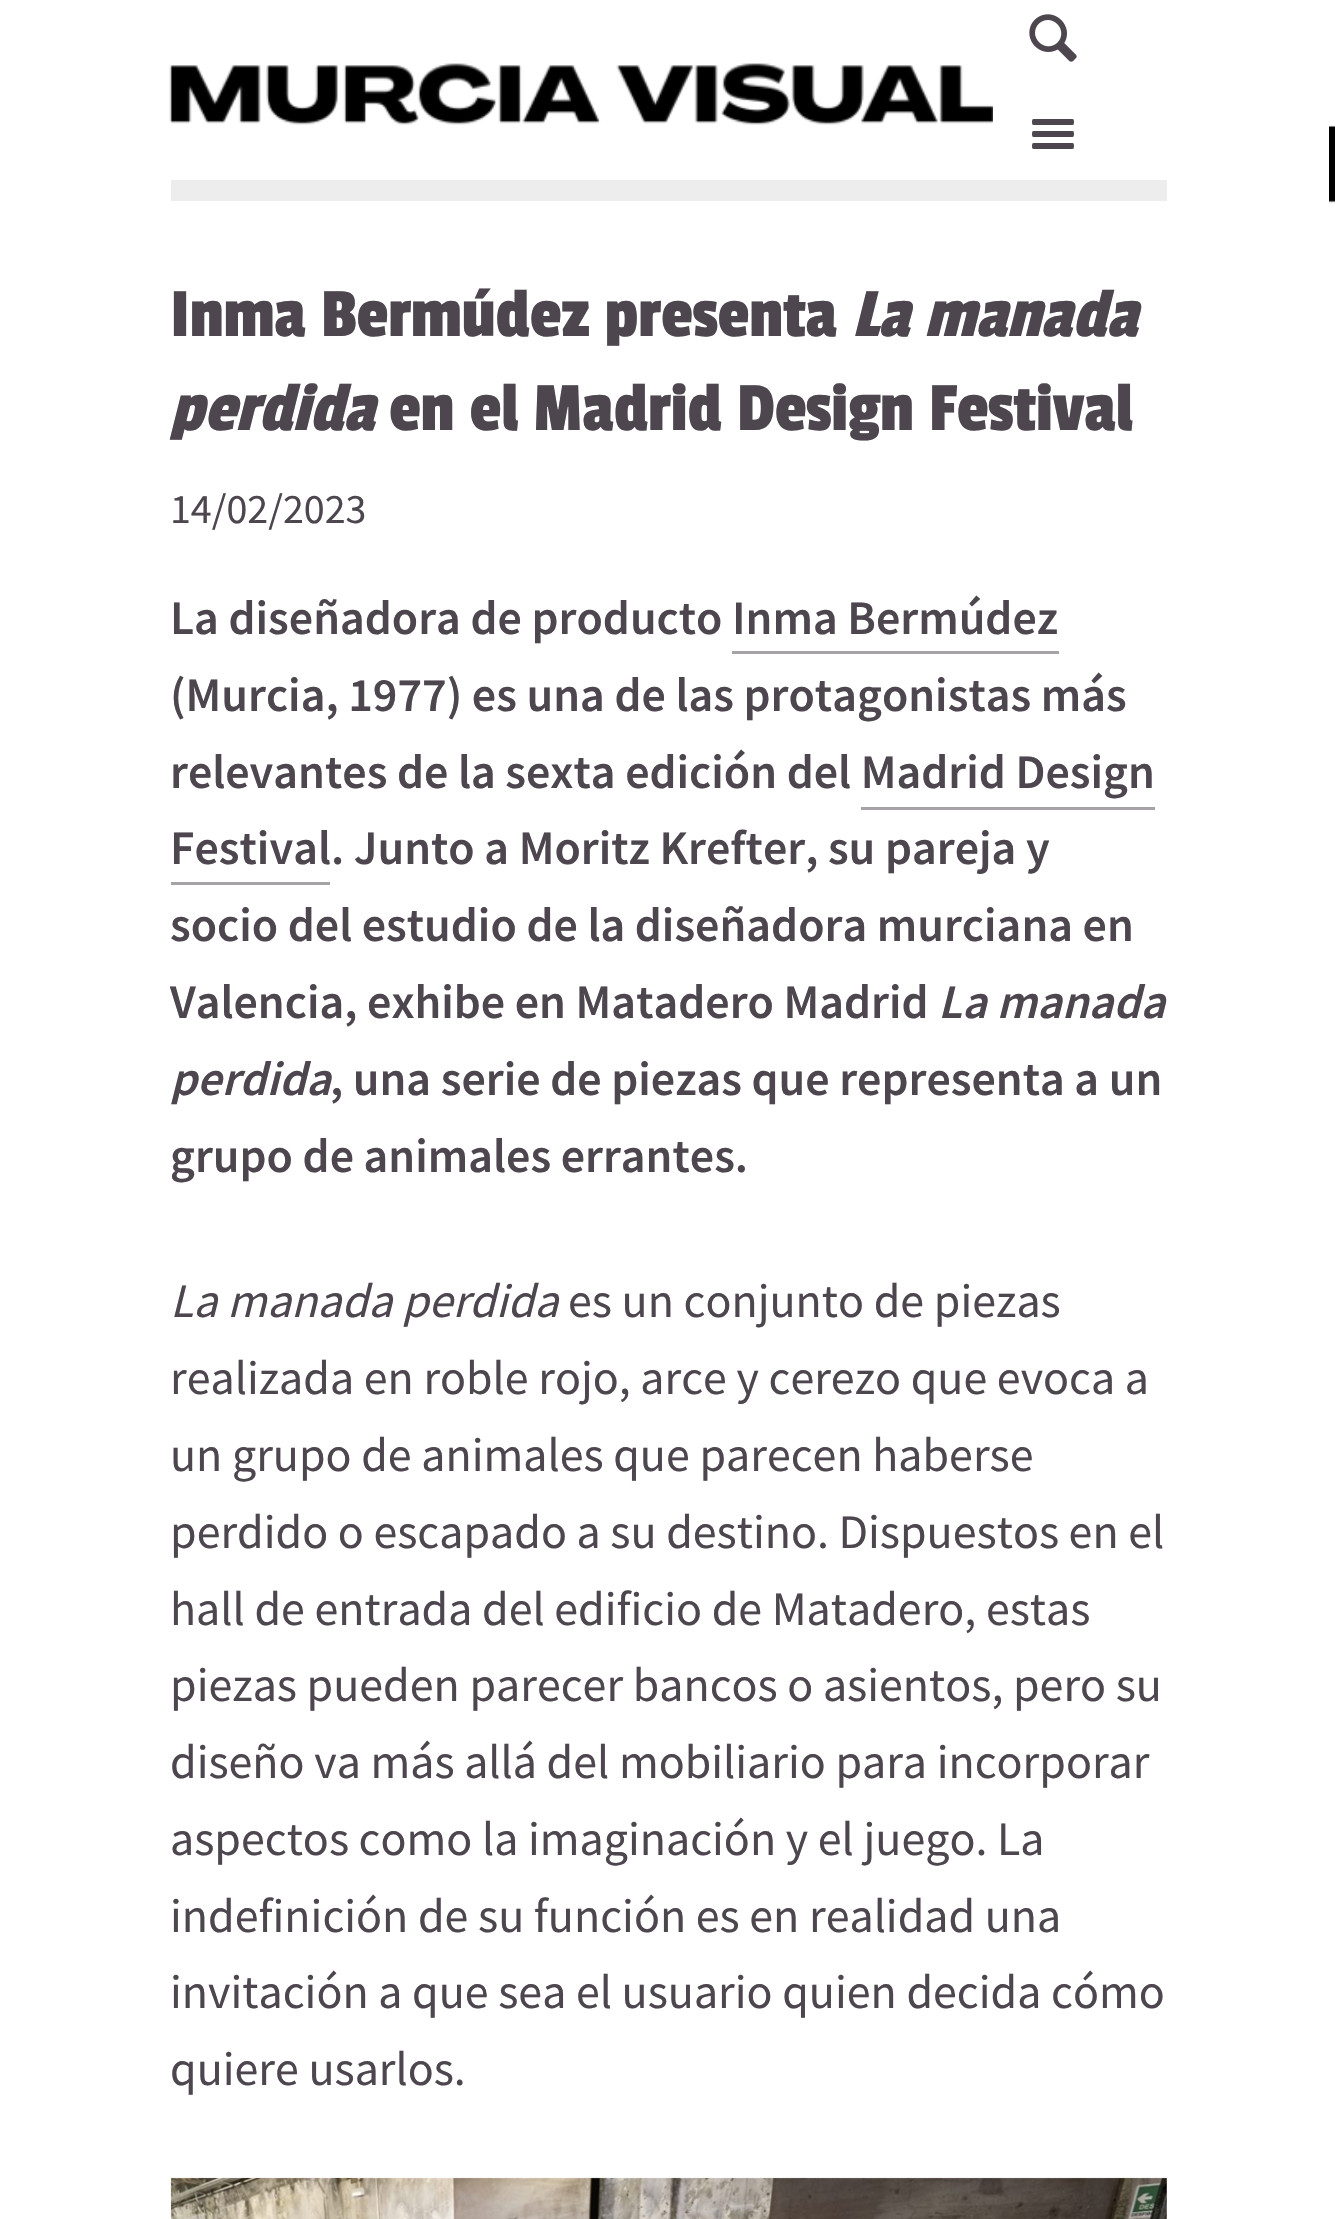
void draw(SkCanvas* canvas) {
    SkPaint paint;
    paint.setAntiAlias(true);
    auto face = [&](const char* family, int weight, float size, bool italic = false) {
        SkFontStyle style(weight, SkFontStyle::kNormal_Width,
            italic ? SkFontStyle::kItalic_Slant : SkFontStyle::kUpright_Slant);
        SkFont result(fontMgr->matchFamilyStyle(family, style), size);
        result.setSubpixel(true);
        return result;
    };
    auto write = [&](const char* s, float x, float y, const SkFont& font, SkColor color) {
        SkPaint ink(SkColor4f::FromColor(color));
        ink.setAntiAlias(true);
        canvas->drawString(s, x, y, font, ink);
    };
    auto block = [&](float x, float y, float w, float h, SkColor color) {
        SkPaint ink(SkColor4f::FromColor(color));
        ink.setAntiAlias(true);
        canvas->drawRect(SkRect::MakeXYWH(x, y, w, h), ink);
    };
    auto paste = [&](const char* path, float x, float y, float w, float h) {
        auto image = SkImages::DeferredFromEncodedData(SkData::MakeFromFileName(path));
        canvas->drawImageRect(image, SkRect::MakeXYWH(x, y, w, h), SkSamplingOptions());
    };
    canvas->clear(SK_ColorWHITE);
    paste("pic1.png", 169, 63, 824, 62);
    paste("pic2.png", 1029, 14, 48, 48);
    paste("pic3.png", 1032, 119, 42, 30);
    block(171, 180, 996, 21, SkColorSetRGB(237, 237, 237));
    paste("pic4.png", 1329, 125, 6, 79);
    auto kFont1 = face("Passion One", 400, 72);
    write("Inma Bermúdez presenta", 170, 336, kFont1, SkColorSetRGB(77, 70, 79));
    auto kFont2 = face("Passion One", 400, 72, true);
    write("La manada", 852, 336, kFont2, SkColorSetRGB(77, 70, 79));
    write("perdida", 170, 430, kFont2, SkColorSetRGB(77, 70, 79));
    write("en el Madrid Design Festival", 389, 430, kFont1, SkColorSetRGB(77, 70, 79));
    auto kFont3 = face("Source Sans Pro", 400, 42);
    write("14/02/2023", 170, 523, kFont3, SkColorSetRGB(77, 70, 79));
    auto kFont4 = face("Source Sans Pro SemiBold", 600, 48);
    write("La diseñadora de producto Inma Bermúdez", 170, 634, kFont4, SkColorSetRGB(77, 70, 79));
    block(732, 651, 327, 3, SkColorSetRGB(166, 163, 167));
    write("(Murcia, 1977) es una de las protagonistas más", 170, 711, kFont4, SkColorSetRGB(77, 70, 79));
    write("relevantes de la sexta edición del Madrid Design", 170, 788, kFont4, SkColorSetRGB(77, 70, 79));
    block(861, 807, 294, 3, SkColorSetRGB(166, 163, 167));
    write("Festival. Junto a Moritz Krefter, su pareja y", 170, 864, kFont4, SkColorSetRGB(77, 70, 79));
    block(171, 882, 159, 3, SkColorSetRGB(166, 163, 167));
    write("socio del estudio de la diseñadora murciana en", 170, 941, kFont4, SkColorSetRGB(77, 70, 79));
    write("Valencia, exhibe en Matadero Madrid", 170, 1018, kFont4, SkColorSetRGB(77, 70, 79));
    auto kFont5 = face("Source Sans Pro SemiBold", 600, 48, true);
    write("La manada", 938, 1018, kFont5, SkColorSetRGB(77, 70, 79));
    write("perdida", 170, 1095, kFont5, SkColorSetRGB(77, 70, 79));
    write(", una serie de piezas que representa a un", 330, 1095, kFont4, SkColorSetRGB(77, 70, 79));
    write("grupo de animales errantes.", 170, 1172, kFont4, SkColorSetRGB(77, 70, 79));
    auto kFont6 = face("Source Sans Pro", 400, 48, true);
    write("La manada perdida", 170, 1317, kFont6, SkColorSetRGB(77, 70, 79));
    auto kFont7 = face("Source Sans Pro", 400, 48);
    write("es un conjunto de piezas", 568, 1317, kFont7, SkColorSetRGB(77, 70, 79));
    write("realizada en roble rojo, arce y cerezo que evoca a", 170, 1394, kFont7, SkColorSetRGB(77, 70, 79));
    write("un grupo de animales que parecen haberse", 170, 1471, kFont7, SkColorSetRGB(77, 70, 79));
    write("perdido o escapado a su destino. Dispuestos en el", 170, 1548, kFont7, SkColorSetRGB(77, 70, 79));
    write("hall de entrada del edificio de Matadero, estas", 170, 1625, kFont7, SkColorSetRGB(77, 70, 79));
    write("piezas pueden parecer bancos o asientos, pero su", 170, 1701, kFont7, SkColorSetRGB(77, 70, 79));
    write("diseño va más allá del mobiliario para incorporar", 170, 1778, kFont7, SkColorSetRGB(77, 70, 79));
    write("aspectos como la imaginación y el juego. La", 170, 1855, kFont7, SkColorSetRGB(77, 70, 79));
    write("indefinición de su función es en realidad una", 170, 1932, kFont7, SkColorSetRGB(77, 70, 79));
    write("invitación a que sea el usuario quien decida cómo", 170, 2008, kFont7, SkColorSetRGB(77, 70, 79));
    write("quiere usarlos.", 170, 2085, kFont7, SkColorSetRGB(77, 70, 79));
    paste("pic5.png", 170, 2177, 997, 42);
}
